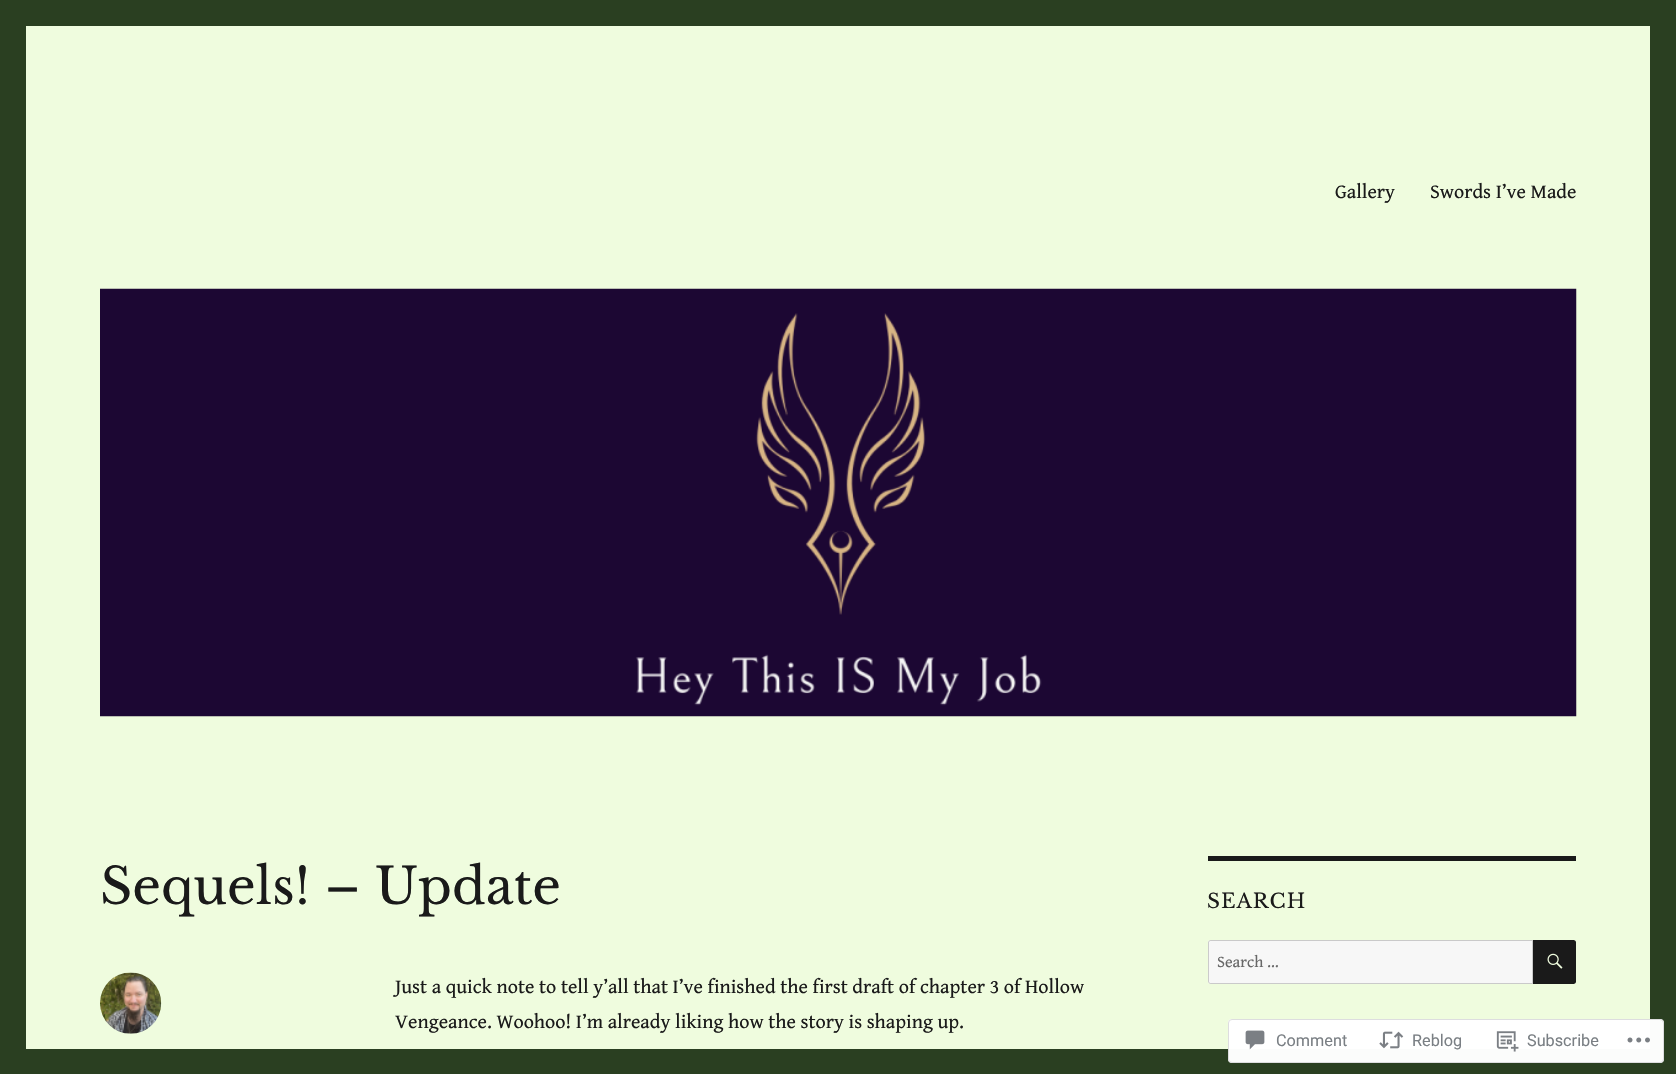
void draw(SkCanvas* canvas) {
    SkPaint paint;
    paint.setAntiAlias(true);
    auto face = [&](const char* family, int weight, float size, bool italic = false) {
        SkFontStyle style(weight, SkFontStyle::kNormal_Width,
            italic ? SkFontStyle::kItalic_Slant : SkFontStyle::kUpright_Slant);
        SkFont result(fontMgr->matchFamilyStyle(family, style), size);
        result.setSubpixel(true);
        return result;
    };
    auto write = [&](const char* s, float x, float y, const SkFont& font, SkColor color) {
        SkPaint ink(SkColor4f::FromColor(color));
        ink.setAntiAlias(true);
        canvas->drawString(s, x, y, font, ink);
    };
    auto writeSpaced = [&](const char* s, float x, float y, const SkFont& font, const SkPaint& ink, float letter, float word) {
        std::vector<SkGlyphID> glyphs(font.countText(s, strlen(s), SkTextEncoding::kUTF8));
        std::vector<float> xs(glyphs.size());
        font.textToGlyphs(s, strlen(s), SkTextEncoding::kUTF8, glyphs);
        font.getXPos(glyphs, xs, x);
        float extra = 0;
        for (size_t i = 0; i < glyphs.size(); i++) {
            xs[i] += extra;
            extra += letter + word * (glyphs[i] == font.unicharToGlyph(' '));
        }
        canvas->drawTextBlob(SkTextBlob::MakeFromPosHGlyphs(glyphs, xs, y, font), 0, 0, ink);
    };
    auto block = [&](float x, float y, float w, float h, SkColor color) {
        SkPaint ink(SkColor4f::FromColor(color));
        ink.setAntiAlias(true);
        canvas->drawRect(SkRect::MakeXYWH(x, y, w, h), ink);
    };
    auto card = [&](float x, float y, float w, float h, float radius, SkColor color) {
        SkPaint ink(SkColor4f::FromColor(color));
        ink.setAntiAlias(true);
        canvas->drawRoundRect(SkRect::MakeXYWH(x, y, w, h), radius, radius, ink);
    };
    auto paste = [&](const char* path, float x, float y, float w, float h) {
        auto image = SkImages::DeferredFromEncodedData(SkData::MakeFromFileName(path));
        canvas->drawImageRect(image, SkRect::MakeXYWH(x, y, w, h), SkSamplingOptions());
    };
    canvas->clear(SkColorSetRGB(42, 63, 33));
    block(26, 26, 1624, 1023, SkColorSetRGB(239, 252, 222));
    auto kFont1 = face("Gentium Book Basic", 400, 20);
    write("Gallery", 1335, 198, kFont1, SkColorSetRGB(26, 26, 26));
    write("Swords I’ve Made", 1430, 198, kFont1, SkColorSetRGB(26, 26, 26));
    paste("pic1.png", 100, 288, 1477, 429);
    auto kFont2 = face("Libre Baskerville", 400, 50);
    write("Sequels! – Update", 100, 904, kFont2, SkColorSetRGB(26, 26, 26));
    paste("pic2.png", 100, 972, 62, 62);
    write("Just a quick note to tell y’all that I’ve finished the first draft of chapter 3 of Hollow", 395, 993, kFont1, SkColorSetRGB(26, 26, 26));
    write("Vengeance. Woohoo! I’m already liking how the story is shaping up.", 395, 1028, kFont1, SkColorSetRGB(26, 26, 26));
    block(1208, 856, 368, 5, SkColorSetRGB(26, 26, 26));
    auto kFont3 = face("Libre Baskerville", 400, 20);
    paint.setColor(SkColorSetRGB(26, 26, 26));
    writeSpaced("SEARCH", 1207, 908, kFont3, paint, 1, 0);
    paint.setColor(SkColorSetRGB(247, 247, 247));
    canvas->drawPath(SkPathBuilder().moveTo(1210.5f, 940).lineTo(1533, 940).lineTo(1533, 984).lineTo(1210.5f, 984).cubicTo(1209, 984, 1208, 983, 1208, 981.5f).lineTo(1208, 942.5f).cubicTo(1208, 941, 1209, 940, 1210.5f, 940).close().detach(), paint);
    paint.setStyle(SkPaint::kStroke_Style);
    paint.setStrokeWidth(1);
    paint.setColor(SkColorSetARGB(51, 26, 26, 26));
    canvas->drawPath(SkPathBuilder().moveTo(1210.5f, 940.5f).lineTo(1532.5f, 940.5f).lineTo(1532.5f, 983.5f).lineTo(1210.5f, 983.5f).cubicTo(1209.5f, 983.5f, 1208.5f, 982.5f, 1208.5f, 981.5f).lineTo(1208.5f, 942.5f).cubicTo(1208.5f, 941.5f, 1209.5f, 940.5f, 1210.5f, 940.5f).close().detach(), paint);
    auto kFont4 = face("Gentium Book Basic", 400, 16.25f);
    write("Search …", 1217, 967, kFont4, SkColorSetRGB(104, 104, 104));
    paint.setStyle(SkPaint::kFill_Style);
    paint.setColor(SkColorSetRGB(26, 26, 26));
    canvas->drawPath(SkPathBuilder().moveTo(1533, 940).lineTo(1573.5f, 940).cubicTo(1575, 940, 1576, 941, 1576, 942.5f).lineTo(1576, 981.5f).cubicTo(1576, 983, 1575, 984, 1573.5f, 984).lineTo(1533, 984).close().detach(), paint);
    paste("pic3.png", 1547, 953, 16, 16);
    card(1228, 1019, 436, 44, 4, SkColorSetARGB(250, 255, 255, 255));
    paint.setStyle(SkPaint::kStroke_Style);
    paint.setColor(SkColorSetARGB(250, 220, 220, 222));
    canvas->drawRoundRect(SkRect::MakeXYWH(1228.5f, 1019.5f, 435, 43), 3.5f, 3.5f, paint);
    paste("pic4.png", 1245, 1030, 20, 20);
    auto kFont5 = face("Roboto", 400, 16.25f);
    write("Comment", 1276, 1046, kFont5, SkColorSetRGB(122, 127, 132));
    paste("pic5.png", 1379, 1031, 25, 18);
    write("Reblog", 1412, 1046, kFont5, SkColorSetRGB(122, 127, 132));
    paste("pic6.png", 1496, 1031, 23, 21);
    write("Subscribe", 1527, 1046, kFont5, SkColorSetRGB(122, 127, 132));
    paste("pic7.png", 1627, 1037, 23, 6);
}
